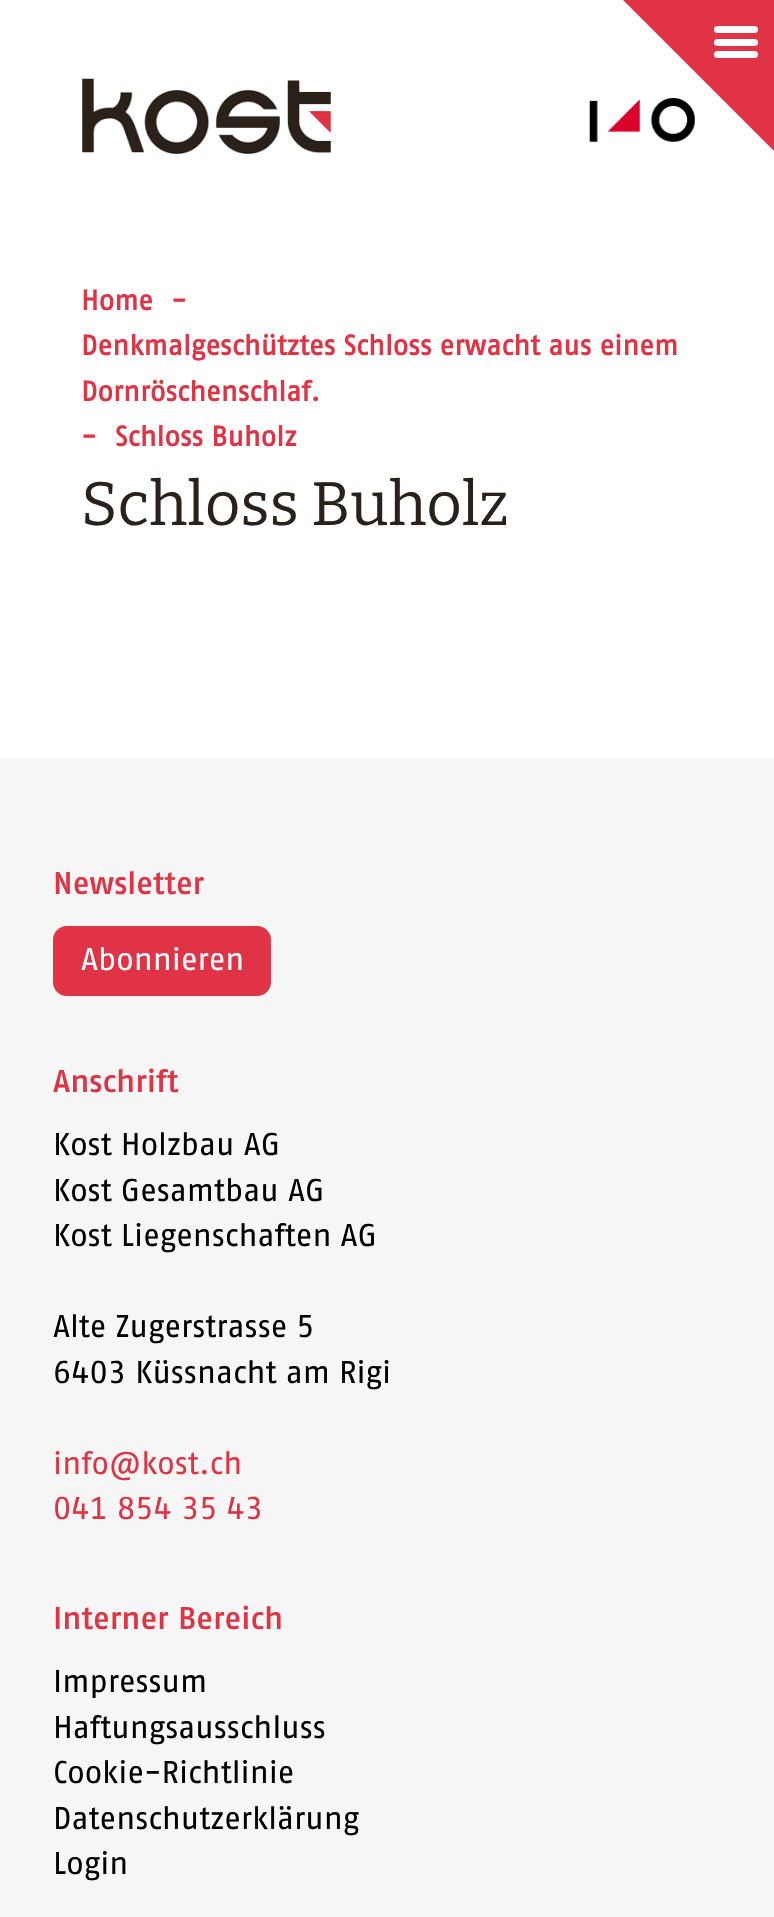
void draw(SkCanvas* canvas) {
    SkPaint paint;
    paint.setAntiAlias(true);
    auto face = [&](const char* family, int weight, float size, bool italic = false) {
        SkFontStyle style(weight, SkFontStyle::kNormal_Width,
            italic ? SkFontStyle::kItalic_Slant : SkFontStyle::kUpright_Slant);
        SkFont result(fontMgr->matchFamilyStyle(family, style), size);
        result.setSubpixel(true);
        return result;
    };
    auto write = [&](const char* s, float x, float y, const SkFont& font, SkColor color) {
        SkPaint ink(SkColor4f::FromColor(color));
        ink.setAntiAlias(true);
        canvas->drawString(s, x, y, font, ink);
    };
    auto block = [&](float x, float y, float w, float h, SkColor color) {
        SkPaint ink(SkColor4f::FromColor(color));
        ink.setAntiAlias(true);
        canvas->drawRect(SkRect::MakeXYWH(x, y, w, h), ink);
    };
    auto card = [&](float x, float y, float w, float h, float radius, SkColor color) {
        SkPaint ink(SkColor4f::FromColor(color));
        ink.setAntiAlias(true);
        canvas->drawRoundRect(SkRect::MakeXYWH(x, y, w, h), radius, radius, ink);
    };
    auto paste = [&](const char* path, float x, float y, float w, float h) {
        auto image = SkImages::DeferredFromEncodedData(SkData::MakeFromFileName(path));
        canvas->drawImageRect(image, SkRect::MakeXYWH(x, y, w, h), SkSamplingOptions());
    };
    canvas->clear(SK_ColorWHITE);
    paste("pic1.png", 82, 78, 249, 76);
    paste("pic2.png", 589, 98, 106, 44);
    paint.setColor(SkColorSetRGB(224, 51, 69));
    canvas->drawPath(SkPathBuilder().moveTo(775, 152).lineTo(623, 0).lineTo(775, 0).close().detach(), paint);
    card(714, 26, 44, 7, 3.5f, SK_ColorWHITE);
    card(714, 39, 44, 7, 3.5f, SK_ColorWHITE);
    card(714, 51, 44, 7, 3.5f, SK_ColorWHITE);
    auto kFont1 = face("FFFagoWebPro", 700, 28);
    write("Home", 81, 310, kFont1, SkColorSetRGB(224, 51, 69));
    write("-", 171, 310, kFont1, SkColorSetRGB(224, 51, 69));
    write("Denkmalgeschütztes Schloss erwacht aus einem", 81, 355, kFont1, SkColorSetRGB(224, 51, 69));
    write("Dornröschenschlaf.", 81, 401, kFont1, SkColorSetRGB(224, 51, 69));
    write("-", 81, 446, kFont1, SkColorSetRGB(224, 51, 69));
    write("Schloss Buholz", 115, 446, kFont1, SkColorSetRGB(224, 51, 69));
    auto kFont2 = face("Bitter", 100, 61.25f);
    write("Schloss Buholz", 81, 525, kFont2, SkColorSetRGB(42, 33, 26));
    block(0, 758, 774, 1159, SkColorSetRGB(246, 246, 246));
    auto kFont3 = face("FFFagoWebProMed", 400, 31.5f);
    write("Newsletter", 53, 894, kFont3, SkColorSetRGB(224, 51, 69));
    canvas->drawRoundRect(SkRect::MakeXYWH(54, 927, 216, 68), 13, 13, paint);
    paint.setStyle(SkPaint::kStroke_Style);
    paint.setStrokeWidth(2);
    canvas->drawRoundRect(SkRect::MakeXYWH(54, 927, 216, 68), 13, 13, paint);
    auto kFont4 = face("FFFagoWebPro", 400, 31.5f);
    write("Abonnieren", 81, 970, kFont4, SK_ColorWHITE);
    write("Anschrift", 53, 1092, kFont3, SkColorSetRGB(224, 51, 69));
    write("Kost Holzbau AG", 53, 1155, kFont4, SK_ColorBLACK);
    write("Kost Gesamtbau AG", 53, 1201, kFont4, SK_ColorBLACK);
    write("Kost Liegenschaften AG", 53, 1246, kFont4, SK_ColorBLACK);
    write("Alte Zugerstrasse 5", 53, 1337, kFont4, SK_ColorBLACK);
    write("6403 Küssnacht am Rigi", 53, 1383, kFont4, SK_ColorBLACK);
    write("info@kost.ch", 53, 1474, kFont4, SkColorSetRGB(224, 51, 69));
    write("041 854 35 43", 53, 1519, kFont4, SkColorSetRGB(224, 51, 69));
    write("Interner Bereich", 53, 1629, kFont3, SkColorSetRGB(224, 51, 69));
    write("Impressum", 53, 1692, kFont4, SK_ColorBLACK);
    write("Haftungsausschluss", 53, 1738, kFont4, SK_ColorBLACK);
    write("Cookie-Richtlinie", 53, 1783, kFont4, SK_ColorBLACK);
    write("Datenschutzerklärung", 53, 1829, kFont4, SK_ColorBLACK);
    write("Login", 53, 1874, kFont4, SK_ColorBLACK);
}
